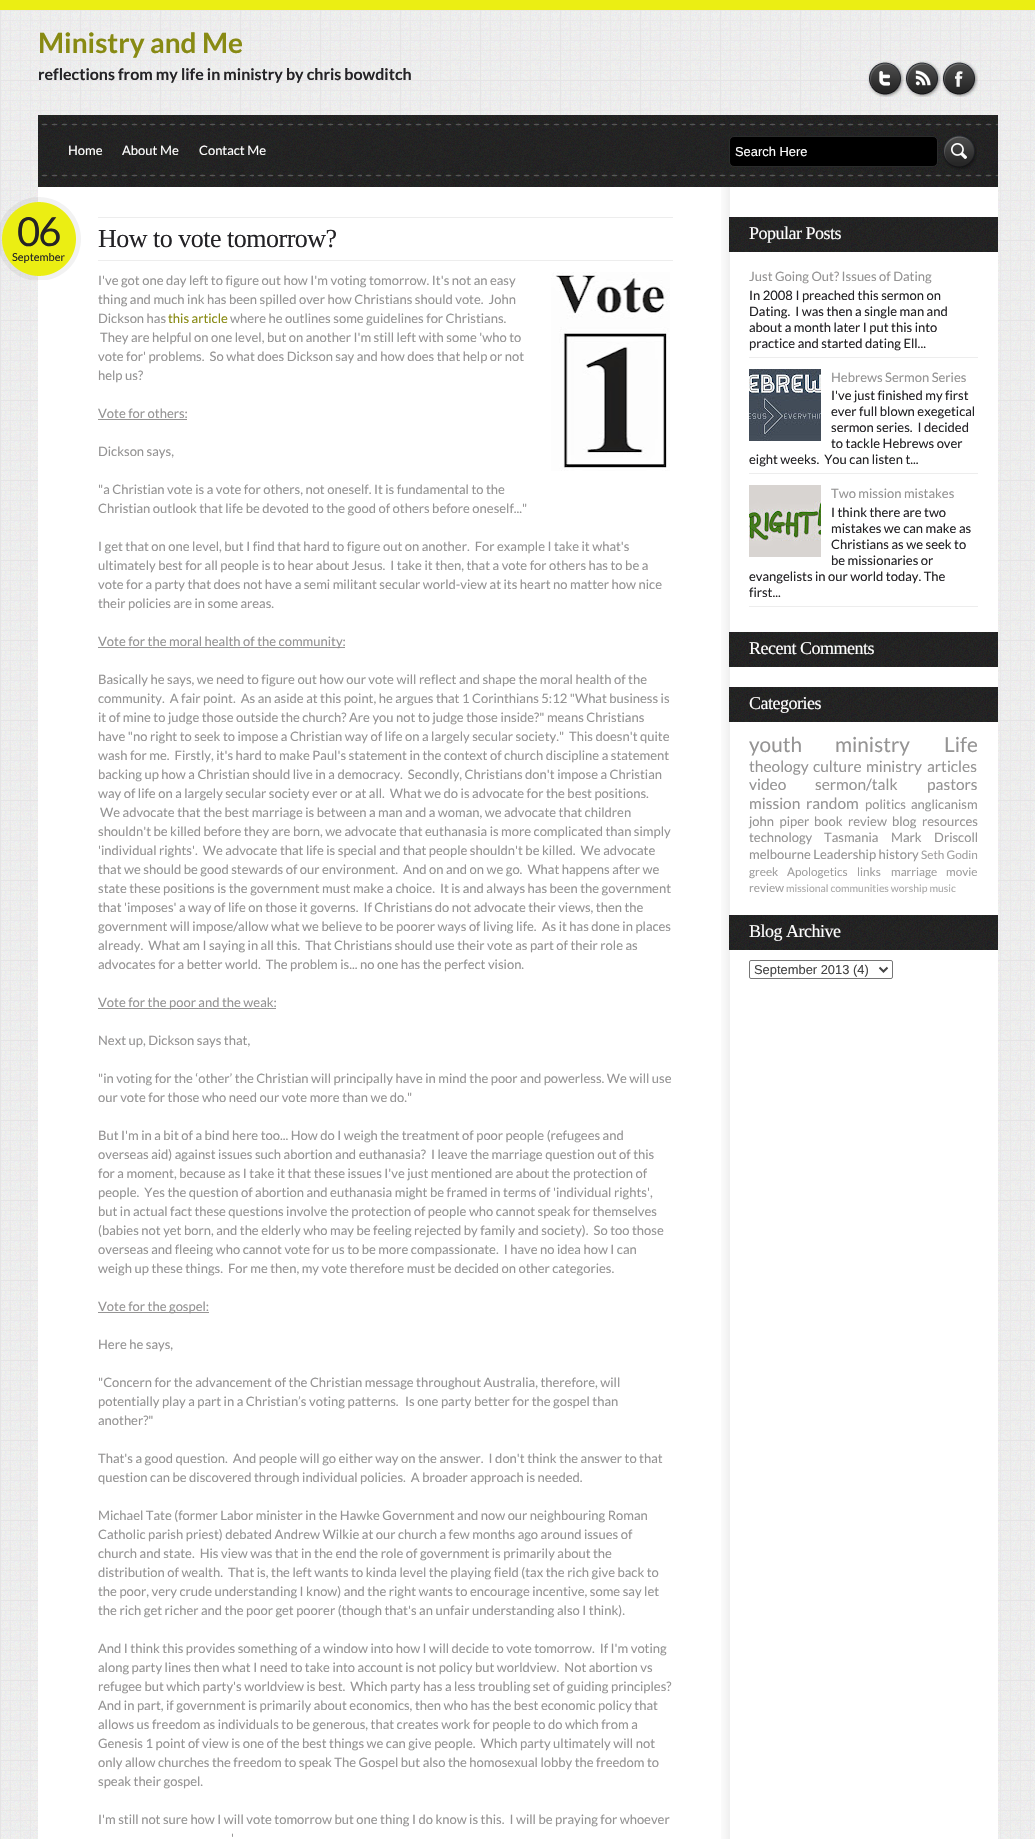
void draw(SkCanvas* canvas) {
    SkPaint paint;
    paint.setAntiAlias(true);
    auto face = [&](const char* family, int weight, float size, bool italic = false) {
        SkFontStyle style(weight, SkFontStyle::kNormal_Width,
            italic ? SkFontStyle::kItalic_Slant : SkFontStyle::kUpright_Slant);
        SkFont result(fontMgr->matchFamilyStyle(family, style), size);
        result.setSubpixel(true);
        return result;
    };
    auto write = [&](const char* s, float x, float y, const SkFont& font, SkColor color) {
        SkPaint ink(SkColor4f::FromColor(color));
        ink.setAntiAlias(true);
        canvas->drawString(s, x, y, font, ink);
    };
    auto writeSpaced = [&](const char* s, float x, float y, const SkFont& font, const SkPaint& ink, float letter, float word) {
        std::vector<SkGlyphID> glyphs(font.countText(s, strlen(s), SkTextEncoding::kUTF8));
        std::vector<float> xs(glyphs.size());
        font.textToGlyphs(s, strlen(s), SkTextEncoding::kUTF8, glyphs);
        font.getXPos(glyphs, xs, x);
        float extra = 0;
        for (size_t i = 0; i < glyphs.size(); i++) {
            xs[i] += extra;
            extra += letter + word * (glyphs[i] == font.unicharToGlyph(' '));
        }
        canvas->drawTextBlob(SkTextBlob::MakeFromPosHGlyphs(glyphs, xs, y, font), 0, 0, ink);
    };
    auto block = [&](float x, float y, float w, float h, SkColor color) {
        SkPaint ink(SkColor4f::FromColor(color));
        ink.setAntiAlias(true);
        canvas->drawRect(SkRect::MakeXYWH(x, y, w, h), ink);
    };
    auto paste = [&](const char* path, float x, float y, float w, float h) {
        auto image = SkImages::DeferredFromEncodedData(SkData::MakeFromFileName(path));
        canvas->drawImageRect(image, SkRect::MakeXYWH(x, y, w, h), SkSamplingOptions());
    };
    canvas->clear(SK_ColorWHITE);
    paste("pic1.png", 0, 10, 1035, 1829);
    block(0, 0, 1035, 10, SkColorSetRGB(235, 238, 19));
    auto kFont1 = face("Lato", 700, 28);
    write("Ministry and Me", 38, 53, kFont1, SkColorSetRGB(136, 138, 19));
    auto kFont2 = face("Lato", 700, 16);
    write("reflections from my life in ministry by chris bowditch", 38, 80, kFont2, SkColorSetRGB(36, 35, 38));
    paste("pic2.png", 867, 61, 37, 36);
    paste("pic3.png", 904, 61, 37, 36);
    paste("pic4.png", 941, 61, 37, 36);
    paste("pic5.png", 38, 115, 960, 72);
    auto kFont3 = face("Lato", 400, 13);
    write("Home", 68, 155, kFont3, SK_ColorWHITE);
    write("About Me", 122, 155, kFont3, SK_ColorWHITE);
    write("Contact Me", 199, 155, kFont3, SK_ColorWHITE);
    paint.setColor(SK_ColorBLACK);
    canvas->drawRoundRect(SkRect::MakeXYWH(729.5f, 136.5f, 208, 30), 4.5f, 4.5f, paint);
    paint.setStyle(SkPaint::kStroke_Style);
    paint.setStrokeWidth(1);
    paint.setColor(SkColorSetRGB(43, 44, 44));
    canvas->drawRoundRect(SkRect::MakeXYWH(729.5f, 136.5f, 208, 30), 4.5f, 4.5f, paint);
    auto kFont4 = face("Liberation Sans", 400, 12.9f);
    write("Search Here", 735, 156, kFont4, SK_ColorWHITE);
    paste("pic6.png", 943, 135, 34, 35);
    block(38, 187, 960, 1652, SK_ColorWHITE);
    paste("pic7.png", 721, 187, 9, 1652);
    paste("pic8.png", 0, 197, 81, 83);
    auto kFont5 = face("Lato", 400, 40);
    paint.setStyle(SkPaint::kFill_Style);
    paint.setColor(SkColorSetRGB(36, 35, 38));
    writeSpaced("06", 17, 246, kFont5, paint, -2, 0);
    auto kFont6 = face("Lato", 400, 11);
    write("September", 12, 261, kFont6, SkColorSetRGB(36, 35, 38));
    block(98, 217, 575, 1, SkColorSetRGB(237, 237, 237));
    block(98, 260, 575, 1, SkColorSetRGB(237, 237, 237));
    auto kFont7 = face("Liberation Serif", 400, 26);
    writeSpaced("How to vote tomorrow?", 98, 247, kFont7, paint, -0.5f, 0);
    write("I've got one day left to figure out how I'm voting tomorrow. It's not an easy", 98, 285, kFont3, SkColorSetRGB(149, 148, 148));
    paste("pic9.png", 551, 272, 119, 199);
    write("thing and much ink has been spilled over how Christians should vote.  John", 98, 304, kFont3, SkColorSetRGB(149, 148, 148));
    write("Dickson has", 98, 323, kFont3, SkColorSetRGB(149, 148, 148));
    write("this article", 168, 323, kFont3, SkColorSetRGB(136, 138, 19));
    write("where he outlines some guidelines for Christians.", 230, 323, kFont3, SkColorSetRGB(149, 148, 148));
    write("They are helpful on one level, but on another I'm still left with some 'who to", 100, 342, kFont3, SkColorSetRGB(149, 148, 148));
    write("vote for' problems.  So what does Dickson say and how does that help or not", 98, 361, kFont3, SkColorSetRGB(149, 148, 148));
    write("help us?", 98, 380, kFont3, SkColorSetRGB(149, 148, 148));
    write("Vote for others:", 98, 418, kFont3, SkColorSetRGB(149, 148, 148));
    block(98, 419, 89, 1, SkColorSetRGB(149, 148, 148));
    write("Dickson says,", 98, 456, kFont3, SkColorSetRGB(149, 148, 148));
    write("\"a Christian vote is a vote for others, not oneself. It is fundamental to the", 98, 494, kFont3, SkColorSetRGB(149, 148, 148));
    write("Christian outlook that life be devoted to the good of others before oneself...\"", 98, 513, kFont3, SkColorSetRGB(149, 148, 148));
    write("I get that on one level, but I find that hard to figure out on another.  For example I take it what's", 98, 551, kFont3, SkColorSetRGB(149, 148, 148));
    write("ultimately best for all people is to hear about Jesus.  I take it then, that a vote for others has to be a", 98, 570, kFont3, SkColorSetRGB(149, 148, 148));
    write("vote for a party that does not have a semi militant secular world-view at its heart no matter how nice", 98, 589, kFont3, SkColorSetRGB(149, 148, 148));
    write("their policies are in some areas.", 98, 608, kFont3, SkColorSetRGB(149, 148, 148));
    block(98, 647, 247, 1, SkColorSetRGB(149, 148, 148));
    write("Vote for the moral health of the community:", 98, 646, kFont3, SkColorSetRGB(149, 148, 148));
    write("Basically he says, we need to figure out how our vote will reflect and shape the moral health of the", 98, 684, kFont3, SkColorSetRGB(149, 148, 148));
    write("community.  A fair point.  As an aside at this point, he argues that 1 Corinthians 5:12 \"What business is", 98, 703, kFont3, SkColorSetRGB(149, 148, 148));
    write("it of mine to judge those outside the church? Are you not to judge those inside?\" means Christians", 98, 722, kFont3, SkColorSetRGB(149, 148, 148));
    write("have \"no right to seek to impose a Christian way of life on a largely secular society.\"  This doesn't quite", 98, 741, kFont3, SkColorSetRGB(149, 148, 148));
    write("wash for me.  Firstly, it's hard to make Paul's statement in the context of church discipline a statement", 98, 760, kFont3, SkColorSetRGB(149, 148, 148));
    write("backing up how a Christian should live in a democracy.  Secondly, Christians don't impose a Christian", 98, 779, kFont3, SkColorSetRGB(149, 148, 148));
    write("way of life on a largely secular society ever or at all.  What we do is advocate for the best positions.", 98, 798, kFont3, SkColorSetRGB(149, 148, 148));
    write("We advocate that the best marriage is between a man and a woman, we advocate that children", 100, 817, kFont3, SkColorSetRGB(149, 148, 148));
    write("shouldn't be killed before they are born, we advocate that euthanasia is more complicated than simply", 98, 836, kFont3, SkColorSetRGB(149, 148, 148));
    write("'individual rights'.  We advocate that life is special and that people shouldn't be killed.  We advocate", 98, 855, kFont3, SkColorSetRGB(149, 148, 148));
    write("that we should be good stewards of our environment.  And on and on we go.  What happens after we", 98, 874, kFont3, SkColorSetRGB(149, 148, 148));
    write("state these positions is the government must make a choice.  It is and always has been the government", 98, 893, kFont3, SkColorSetRGB(149, 148, 148));
    write("that 'imposes' a way of life on those it governs.  If Christians do not advocate their views, then the", 98, 912, kFont3, SkColorSetRGB(149, 148, 148));
    write("government will impose/allow what we believe to be poorer ways of living life.  As it has done in places", 98, 931, kFont3, SkColorSetRGB(149, 148, 148));
    write("already.  What am I saying in all this.  That Christians should use their vote as part of their role as", 98, 950, kFont3, SkColorSetRGB(149, 148, 148));
    write("advocates for a better world.  The problem is... no one has the perfect vision.", 98, 969, kFont3, SkColorSetRGB(149, 148, 148));
    block(98, 1008, 178, 1, SkColorSetRGB(149, 148, 148));
    write("Vote for the poor and the weak:", 98, 1007, kFont3, SkColorSetRGB(149, 148, 148));
    write("Next up, Dickson says that,", 98, 1045, kFont3, SkColorSetRGB(149, 148, 148));
    write("\"in voting for the ‘other’ the Christian will principally have in mind the poor and powerless. We will use", 98, 1083, kFont3, SkColorSetRGB(149, 148, 148));
    write("our vote for those who need our vote more than we do.\"", 98, 1102, kFont3, SkColorSetRGB(149, 148, 148));
    write("But I'm in a bit of a bind here too... How do I weigh the treatment of poor people (refugees and", 98, 1140, kFont3, SkColorSetRGB(149, 148, 148));
    write("overseas aid) against issues such abortion and euthanasia?  I leave the marriage question out of this", 98, 1159, kFont3, SkColorSetRGB(149, 148, 148));
    write("for a moment, because as I take it that these issues I've just mentioned are about the protection of", 98, 1178, kFont3, SkColorSetRGB(149, 148, 148));
    write("people.  Yes the question of abortion and euthanasia might be framed in terms of 'individual rights',", 98, 1197, kFont3, SkColorSetRGB(149, 148, 148));
    write("but in actual fact these questions involve the protection of people who cannot speak for themselves", 98, 1216, kFont3, SkColorSetRGB(149, 148, 148));
    write("(babies not yet born, and the elderly who may be feeling rejected by family and society).  So too those", 98, 1235, kFont3, SkColorSetRGB(149, 148, 148));
    write("overseas and fleeing who cannot vote for us to be more compassionate.  I have no idea how I can", 98, 1254, kFont3, SkColorSetRGB(149, 148, 148));
    write("weigh up these things.  For me then, my vote therefore must be decided on other categories.", 98, 1273, kFont3, SkColorSetRGB(149, 148, 148));
    block(98, 1312, 111, 1, SkColorSetRGB(149, 148, 148));
    write("Vote for the gospel:", 98, 1311, kFont3, SkColorSetRGB(149, 148, 148));
    write("Here he says,", 98, 1349, kFont3, SkColorSetRGB(149, 148, 148));
    write("\"Concern for the advancement of the Christian message throughout Australia, therefore, will", 98, 1387, kFont3, SkColorSetRGB(149, 148, 148));
    write("potentially play a part in a Christian’s voting patterns.", 98, 1406, kFont3, SkColorSetRGB(149, 148, 148));
    write("Is one party better for the gospel than", 405, 1406, kFont3, SkColorSetRGB(149, 148, 148));
    write("another?\"", 98, 1425, kFont3, SkColorSetRGB(149, 148, 148));
    write("That's a good question.  And people will go either way on the answer.  I don't think the answer to that", 98, 1463, kFont3, SkColorSetRGB(149, 148, 148));
    write("question can be discovered through individual policies.  A broader approach is needed.", 98, 1482, kFont3, SkColorSetRGB(149, 148, 148));
    write("Michael Tate (former Labor minister in the Hawke Government and now our neighbouring Roman", 98, 1520, kFont3, SkColorSetRGB(149, 148, 148));
    write("Catholic parish priest) debated Andrew Wilkie at our church a few months ago around issues of", 98, 1539, kFont3, SkColorSetRGB(149, 148, 148));
    write("church and state.  His view was that in the end the role of government is primarily about the", 98, 1558, kFont3, SkColorSetRGB(149, 148, 148));
    write("distribution of wealth.  That is, the left wants to kinda level the playing field (tax the rich give back to", 98, 1577, kFont3, SkColorSetRGB(149, 148, 148));
    write("the poor, very crude understanding I know) and the right wants to encourage incentive, some say let", 98, 1596, kFont3, SkColorSetRGB(149, 148, 148));
    write("the rich get richer and the poor get poorer (though that's an unfair understanding also I think).", 98, 1615, kFont3, SkColorSetRGB(149, 148, 148));
    write("And I think this provides something of a window into how I will decide to vote tomorrow.  If I'm voting", 98, 1653, kFont3, SkColorSetRGB(149, 148, 148));
    write("along party lines then what I need to take into account is not policy but worldview.  Not abortion vs", 98, 1672, kFont3, SkColorSetRGB(149, 148, 148));
    write("refugee but which party's worldview is best.  Which party has a less troubling set of guiding principles?", 98, 1691, kFont3, SkColorSetRGB(149, 148, 148));
    write("And in part, if government is primarily about economics, then who has the best economic policy that", 98, 1710, kFont3, SkColorSetRGB(149, 148, 148));
    write("allows us freedom as individuals to be generous, that creates work for people to do which from a", 98, 1729, kFont3, SkColorSetRGB(149, 148, 148));
    write("Genesis 1 point of view is one of the best things we can give people.  Which party ultimately will not", 98, 1748, kFont3, SkColorSetRGB(149, 148, 148));
    write("only allow churches the freedom to speak The Gospel but also the homosexual lobby the freedom to", 98, 1767, kFont3, SkColorSetRGB(149, 148, 148));
    write("speak their gospel.", 98, 1786, kFont3, SkColorSetRGB(149, 148, 148));
    write("I'm still not sure how I will vote tomorrow but one thing I do know is this.  I will be praying for whoever", 98, 1824, kFont3, SkColorSetRGB(149, 148, 148));
    write("'", 231, 1843, kFont3, SkColorSetRGB(149, 148, 148));
    paste("pic10.png", 729, 217, 269, 35);
    auto kFont8 = face("Liberation Serif", 400, 18);
    paint.setColor(SK_ColorWHITE);
    writeSpaced("Popular Posts", 749, 239, kFont8, paint, -0.5f, 0);
    block(749, 357, 229, 1, SkColorSetRGB(237, 237, 237));
    write("Just Going Out? Issues of Dating", 749, 281, kFont3, SkColorSetRGB(149, 148, 148));
    write("In 2008 I preached this sermon on", 749, 300, kFont3, SkColorSetRGB(36, 35, 38));
    write("Dating.  I was then a single man and", 749, 316, kFont3, SkColorSetRGB(36, 35, 38));
    write("about a month later I put this into", 749, 332, kFont3, SkColorSetRGB(36, 35, 38));
    write("practice and started dating Ell...", 749, 348, kFont3, SkColorSetRGB(36, 35, 38));
    block(749, 473, 229, 1, SkColorSetRGB(237, 237, 237));
    paste("pic11.png", 749, 369, 72, 72);
    write("Hebrews Sermon Series", 831, 382, kFont3, SkColorSetRGB(149, 148, 148));
    write("I've just finished my first", 831, 400, kFont3, SkColorSetRGB(36, 35, 38));
    write("ever full blown exegetical", 831, 416, kFont3, SkColorSetRGB(36, 35, 38));
    write("sermon series.  I decided", 831, 432, kFont3, SkColorSetRGB(36, 35, 38));
    write("to tackle Hebrews over", 831, 448, kFont3, SkColorSetRGB(36, 35, 38));
    write("eight weeks.  You can listen t...", 749, 464, kFont3, SkColorSetRGB(36, 35, 38));
    block(749, 606, 229, 1, SkColorSetRGB(237, 237, 237));
    paste("pic12.png", 749, 485, 72, 72);
    write("Two mission mistakes", 831, 498, kFont3, SkColorSetRGB(149, 148, 148));
    write("I think there are two", 831, 517, kFont3, SkColorSetRGB(36, 35, 38));
    write("mistakes we can make as", 831, 533, kFont3, SkColorSetRGB(36, 35, 38));
    write("Christians as we seek to", 831, 549, kFont3, SkColorSetRGB(36, 35, 38));
    write("be missionaries or", 831, 565, kFont3, SkColorSetRGB(36, 35, 38));
    write("evangelists in our world today. The", 749, 581, kFont3, SkColorSetRGB(36, 35, 38));
    write("first...", 749, 597, kFont3, SkColorSetRGB(36, 35, 38));
    paste("pic10.png", 729, 632, 269, 35);
    writeSpaced("Recent Comments", 749, 654, kFont8, paint, -0.5f, 0);
    paste("pic10.png", 729, 687, 269, 35);
    writeSpaced("Categories", 749, 709, kFont8, paint, -0.5f, 0);
    auto kFont9 = face("Lato", 400, 20.75f);
    paint.setColor(SkColorSetRGB(149, 148, 148));
    writeSpaced("youth ministry", 749, 752, kFont9, paint, 0, 29);
    write("Life", 944, 752, kFont9, SkColorSetRGB(149, 148, 148));
    auto kFont10 = face("Lato", 400, 15.5f);
    write("theology", 749, 772, kFont10, SkColorSetRGB(149, 148, 148));
    write("culture", 813, 772, kFont10, SkColorSetRGB(149, 148, 148));
    write("ministry", 866, 772, kFont10, SkColorSetRGB(149, 148, 148));
    write("articles", 927, 772, kFont10, SkColorSetRGB(149, 148, 148));
    write("video", 749, 790, kFont10, SkColorSetRGB(149, 148, 148));
    write("sermon/talk", 815, 790, kFont10, SkColorSetRGB(149, 148, 148));
    write("pastors", 927, 790, kFont10, SkColorSetRGB(149, 148, 148));
    write("mission", 749, 809, kFont10, SkColorSetRGB(149, 148, 148));
    write("random", 806, 809, kFont10, SkColorSetRGB(149, 148, 148));
    write("politics", 865, 809, kFont3, SkColorSetRGB(149, 148, 148));
    write("anglicanism", 911, 809, kFont3, SkColorSetRGB(149, 148, 148));
    writeSpaced("john piper", 749, 826, kFont3, paint, 0, 3);
    writeSpaced("book review", 814, 826, kFont3, paint, 0, 3);
    write("blog", 892, 826, kFont3, SkColorSetRGB(149, 148, 148));
    write("resources", 922, 826, kFont3, SkColorSetRGB(149, 148, 148));
    write("technology", 749, 842, kFont3, SkColorSetRGB(149, 148, 148));
    write("Tasmania", 824, 842, kFont3, SkColorSetRGB(149, 148, 148));
    writeSpaced("Mark Driscoll", 891, 842, kFont3, paint, 0, 10);
    write("melbourne Leadership history", 749, 859, kFont3, SkColorSetRGB(149, 148, 148));
    auto kFont11 = face("Lato", 400, 11.75f);
    write("Seth Godin", 921, 859, kFont11, SkColorSetRGB(160, 159, 159));
    write("greek", 749, 876, kFont11, SkColorSetRGB(160, 159, 159));
    write("Apologetics", 787, 876, kFont11, SkColorSetRGB(160, 159, 159));
    write("links", 857, 876, kFont11, SkColorSetRGB(160, 159, 159));
    write("marriage", 891, 876, kFont11, SkColorSetRGB(160, 159, 159));
    write("movie", 946, 876, kFont11, SkColorSetRGB(160, 159, 159));
    write("review", 749, 892, kFont11, SkColorSetRGB(160, 159, 159));
    auto kFont12 = face("Lato", 400, 10.4f);
    write("missional communities worship music", 786, 892, kFont12, SkColorSetRGB(170, 169, 169));
    paste("pic10.png", 729, 915, 269, 35);
    paint.setColor(SK_ColorWHITE);
    writeSpaced("Blog Archive", 749, 937, kFont8, paint, -0.5f, 0);
    paint.setStyle(SkPaint::kStroke_Style);
    paint.setColor(SkColorSetRGB(118, 118, 118));
    canvas->drawRoundRect(SkRect::MakeXYWH(749.5f, 960.5f, 143, 18), 1.5f, 1.5f, paint);
    paint.setStrokeWidth(2);
    paint.setColor(SkColorSetRGB(68, 68, 68));
    canvas->drawPath(SkPathBuilder().moveTo(879.5f, 967.5f).lineTo(883.5f, 971.5f).lineTo(887.5f, 967.5f).detach(), paint);
    write("September 2013 (4)", 754, 974, kFont4, SkColorSetRGB(68, 68, 68));
}
